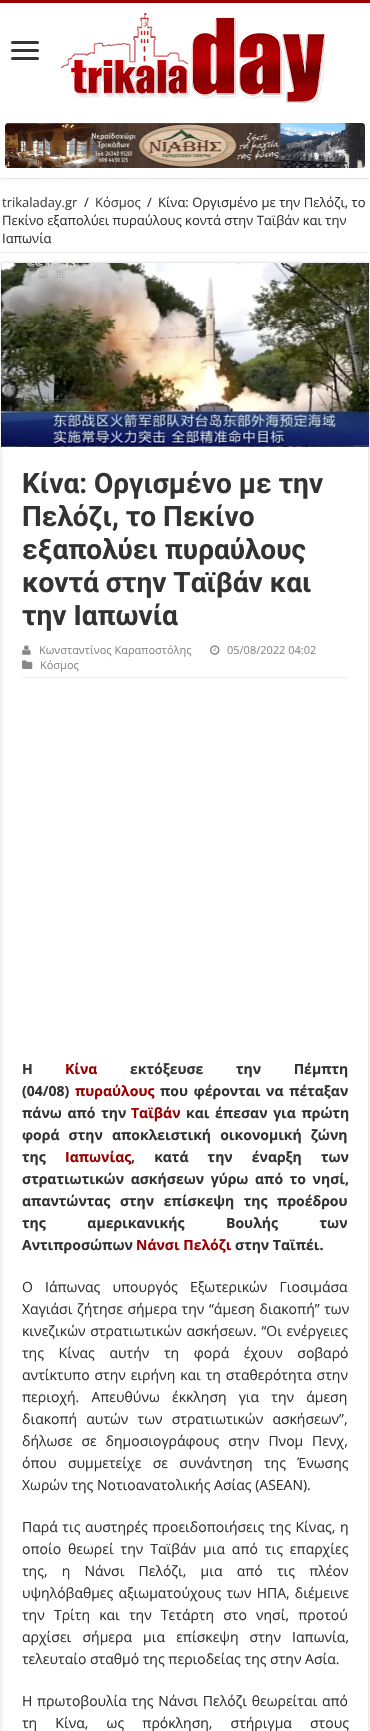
void draw(SkCanvas* canvas) {
    SkPaint paint;
    paint.setAntiAlias(true);
    auto face = [&](const char* family, int weight, float size, bool italic = false) {
        SkFontStyle style(weight, SkFontStyle::kNormal_Width,
            italic ? SkFontStyle::kItalic_Slant : SkFontStyle::kUpright_Slant);
        SkFont result(fontMgr->matchFamilyStyle(family, style), size);
        result.setSubpixel(true);
        return result;
    };
    auto write = [&](const char* s, float x, float y, const SkFont& font, SkColor color) {
        SkPaint ink(SkColor4f::FromColor(color));
        ink.setAntiAlias(true);
        canvas->drawString(s, x, y, font, ink);
    };
    auto writeSpaced = [&](const char* s, float x, float y, const SkFont& font, const SkPaint& ink, float letter, float word) {
        std::vector<SkGlyphID> glyphs(font.countText(s, strlen(s), SkTextEncoding::kUTF8));
        std::vector<float> xs(glyphs.size());
        font.textToGlyphs(s, strlen(s), SkTextEncoding::kUTF8, glyphs);
        font.getXPos(glyphs, xs, x);
        float extra = 0;
        for (size_t i = 0; i < glyphs.size(); i++) {
            xs[i] += extra;
            extra += letter + word * (glyphs[i] == font.unicharToGlyph(' '));
        }
        canvas->drawTextBlob(SkTextBlob::MakeFromPosHGlyphs(glyphs, xs, y, font), 0, 0, ink);
    };
    auto block = [&](float x, float y, float w, float h, SkColor color) {
        SkPaint ink(SkColor4f::FromColor(color));
        ink.setAntiAlias(true);
        canvas->drawRect(SkRect::MakeXYWH(x, y, w, h), ink);
    };
    auto card = [&](float x, float y, float w, float h, float radius, SkColor color) {
        SkPaint ink(SkColor4f::FromColor(color));
        ink.setAntiAlias(true);
        canvas->drawRoundRect(SkRect::MakeXYWH(x, y, w, h), radius, radius, ink);
    };
    auto paste = [&](const char* path, float x, float y, float w, float h) {
        auto image = SkImages::DeferredFromEncodedData(SkData::MakeFromFileName(path));
        canvas->drawImageRect(image, SkRect::MakeXYWH(x, y, w, h), SkSamplingOptions());
    };
    canvas->clear(SK_ColorWHITE);
    canvas->save();
    canvas->clipRect(SkRect::MakeXYWH(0, 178, 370, 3));
    paint.setColor(SkColorSetRGB(202, 202, 202));
    paint.setMaskFilter(SkMaskFilter::MakeBlur(kNormal_SkBlurStyle, 1.5f));
    canvas->drawRect(SkRect::MakeXYWH(0, 0, 370, 178), paint);
    paint.setMaskFilter(nullptr);
    canvas->restore();
    block(0, 0, 370, 3, SkColorSetRGB(153, 1, 1));
    card(11, 41, 28, 3, 1.5f, SkColorSetRGB(51, 51, 51));
    card(11, 49, 28, 3, 1.5f, SkColorSetRGB(51, 51, 51));
    card(11, 57, 28, 3, 1.5f, SkColorSetRGB(51, 51, 51));
    paste("pic1.png", 61, 13, 264, 90);
    paste("pic2.png", 5, 123, 360, 45);
    block(2, 252, 366, 1, SkColorSetRGB(238, 238, 238));
    auto kFont1 = face("Open Sans", 400, 13);
    write("trikaladay.gr", 2, 207, kFont1, SkColorSetRGB(68, 68, 68));
    write("/", 84, 207, kFont1, SkColorSetRGB(51, 51, 51));
    write("Κόσμος", 95, 207, kFont1, SkColorSetRGB(68, 68, 68));
    write("/", 147, 207, kFont1, SkColorSetRGB(51, 51, 51));
    write("Κίνα: Οργισμένο με την Πελόζι, το", 158, 207, kFont1, SkColorSetRGB(51, 51, 51));
    write("Πεκίνο εξαπολύει πυραύλους κοντά στην Ταϊβάν και την", 2, 225, kFont1, SkColorSetRGB(51, 51, 51));
    write("Ιαπωνία", 2, 243, kFont1, SkColorSetRGB(51, 51, 51));
    canvas->save();
    canvas->clipPath(SkPathBuilder(SkPathFillType::kEvenOdd).moveTo(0, 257).lineTo(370, 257).lineTo(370, 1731).lineTo(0, 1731).close().moveTo(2, 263).lineTo(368, 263).lineTo(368, 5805).lineTo(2, 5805).close().detach(), true);
    paint.setMaskFilter(SkMaskFilter::MakeBlur(kNormal_SkBlurStyle, 1.5f));
    canvas->drawRect(SkRect::MakeXYWH(2, 263, 366, 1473), paint);
    paint.setMaskFilter(nullptr);
    canvas->restore();
    paste("pic3.png", 1, 263, 368, 184);
    auto kFont2 = face("Roboto", 700, 28);
    write("Κίνα: Οργισμένο με την", 22, 493, kFont2, SkColorSetRGB(51, 51, 51));
    write("Πελόζι, το Πεκίνο", 22, 526, kFont2, SkColorSetRGB(51, 51, 51));
    write("εξαπολύει πυραύλους", 22, 559, kFont2, SkColorSetRGB(51, 51, 51));
    write("κοντά στην Ταϊβάν και", 22, 592, kFont2, SkColorSetRGB(51, 51, 51));
    write("την Ιαπωνία", 22, 625, kFont2, SkColorSetRGB(51, 51, 51));
    block(22, 677, 326, 1, SkColorSetRGB(242, 242, 242));
    paste("pic4.png", 22, 645, 9, 10);
    auto kFont3 = face("Open Sans", 400, 11);
    write("Κωνσταντίνος Καραποστόλης", 39, 654, kFont3, SkColorSetRGB(136, 136, 136));
    paste("pic5.png", 210, 645, 10, 10);
    write("05/08/2022 04:02", 227, 654, kFont3, SkColorSetRGB(136, 136, 136));
    paste("pic6.png", 22, 660, 11, 9);
    write("Κόσμος", 40, 669, kFont3, SkColorSetRGB(136, 136, 136));
    auto kFont4 = face("Open Sans", 700, 14);
    write("Η", 22, 1074, kFont4, SkColorSetRGB(51, 51, 51));
    write("Κίνα", 65, 1074, kFont4, SkColorSetRGB(153, 1, 1));
    paint.setColor(SkColorSetRGB(51, 51, 51));
    writeSpaced("εκτόξευσε την Πέμπτη", 130, 1074, kFont4, paint, 0, 29);
    write("(04/08)", 22, 1096, kFont4, SkColorSetRGB(51, 51, 51));
    write("πυραύλους", 75, 1096, kFont4, SkColorSetRGB(153, 1, 1));
    writeSpaced("που φέρονται να πέταξαν", 160, 1096, kFont4, paint, 0, 2);
    writeSpaced("πάνω από την", 22, 1118, kFont4, paint, 0, 2);
    write("Ταϊβάν", 131, 1118, kFont4, SkColorSetRGB(153, 1, 1));
    writeSpaced("και έπεσαν για πρώτη", 186, 1118, kFont4, paint, 0, 2);
    writeSpaced("φορά στην αποκλειστική οικονομική ζώνη", 22, 1140, kFont4, paint, 0, 5.5f);
    write("της", 22, 1162, kFont4, SkColorSetRGB(51, 51, 51));
    write("Ιαπωνίας", 65, 1162, kFont4, SkColorSetRGB(153, 1, 1));
    writeSpaced(", κατά την έναρξη των", 131, 1162, kFont4, paint, 0, 15.5f);
    writeSpaced("στρατιωτικών ασκήσεων γύρω από το νησί,", 22, 1184, kFont4, paint, 0, 3);
    writeSpaced("απαντώντας στην επίσκεψη της προέδρου", 22, 1206, kFont4, paint, 0, 6);
    writeSpaced("της αμερικανικής Βουλής των", 22, 1228, kFont4, paint, 0, 38);
    write("Αντιπροσώπων", 22, 1250, kFont4, SkColorSetRGB(51, 51, 51));
    write("Νάνσι Πελόζι", 136, 1250, kFont4, SkColorSetRGB(153, 1, 1));
    write("στην Ταϊπέι.", 235, 1250, kFont4, SkColorSetRGB(51, 51, 51));
    auto kFont5 = face("Open Sans", 400, 14);
    writeSpaced("Ο Ιάπωνας υπουργός Εξωτερικών Γιοσιμάσα", 22, 1292, kFont5, paint, 0, 8.5f);
    writeSpaced("Χαγιάσι ζήτησε σήμερα την “άμεση διακοπή” των", 22, 1314, kFont5, paint, 0, 1);
    writeSpaced("κινεζικών στρατιωτικών ασκήσεων. “Οι ενέργειες", 22, 1336, kFont5, paint, 0, 1);
    writeSpaced("της Κίνας αυτήν τη φορά έχουν σοβαρό", 22, 1358, kFont5, paint, 0, 11);
    writeSpaced("αντίκτυπο στην ειρήνη και τη σταθερότητα στην", 22, 1380, kFont5, paint, 0, 1.25f);
    writeSpaced("περιοχή. Απευθύνω έκκληση για την άμεση", 22, 1402, kFont5, paint, 0, 8.5f);
    writeSpaced("διακοπή αυτών των στρατιωτικών ασκήσεων”,", 22, 1424, kFont5, paint, 0, 5.5f);
    writeSpaced("δήλωσε σε δημοσιογράφους στην Πνομ Πενχ,", 22, 1446, kFont5, paint, 0, 5.25f);
    writeSpaced("όπου συμμετείχε σε συνάντηση της Ένωσης", 22, 1468, kFont5, paint, 0, 7.75f);
    write("Χωρών της Νοτιοανατολικής Ασίας (ASEAN).", 22, 1490, kFont5, SkColorSetRGB(51, 51, 51));
    writeSpaced("Παρά τις αυστηρές προειδοποιήσεις της Κίνας, η", 22, 1532, kFont5, paint, 0, 1);
    writeSpaced("οποίο θεωρεί την Ταϊβάν μια από τις επαρχίες", 22, 1554, kFont5, paint, 0, 3.25f);
    writeSpaced("της, η Νάνσι Πελόζι, μια από τις πλέον", 22, 1576, kFont5, paint, 0, 10.5f);
    writeSpaced("υψηλόβαθμες αξιωματούχους των ΗΠΑ, διέμεινε", 22, 1598, kFont5, paint, 0, 1.5f);
    writeSpaced("την Τρίτη και την Τετάρτη στο νησί, προτού", 22, 1620, kFont5, paint, 0, 5.5f);
    writeSpaced("αρχίσει σήμερα μια επίσκεψη στην Ιαπωνία,", 22, 1642, kFont5, paint, 0, 7.5f);
    write("τελευταίο σταθμό της περιοδείας της στην Ασία.", 22, 1664, kFont5, SkColorSetRGB(51, 51, 51));
    writeSpaced("Η πρωτοβουλία της Νάνσι Πελόζι θεωρείται από", 22, 1706, kFont5, paint, 0, 1);
    writeSpaced("τη Κίνα, ως πρόκληση, στήριγμα στους", 22, 1728, kFont5, paint, 0, 14.5f);
}
